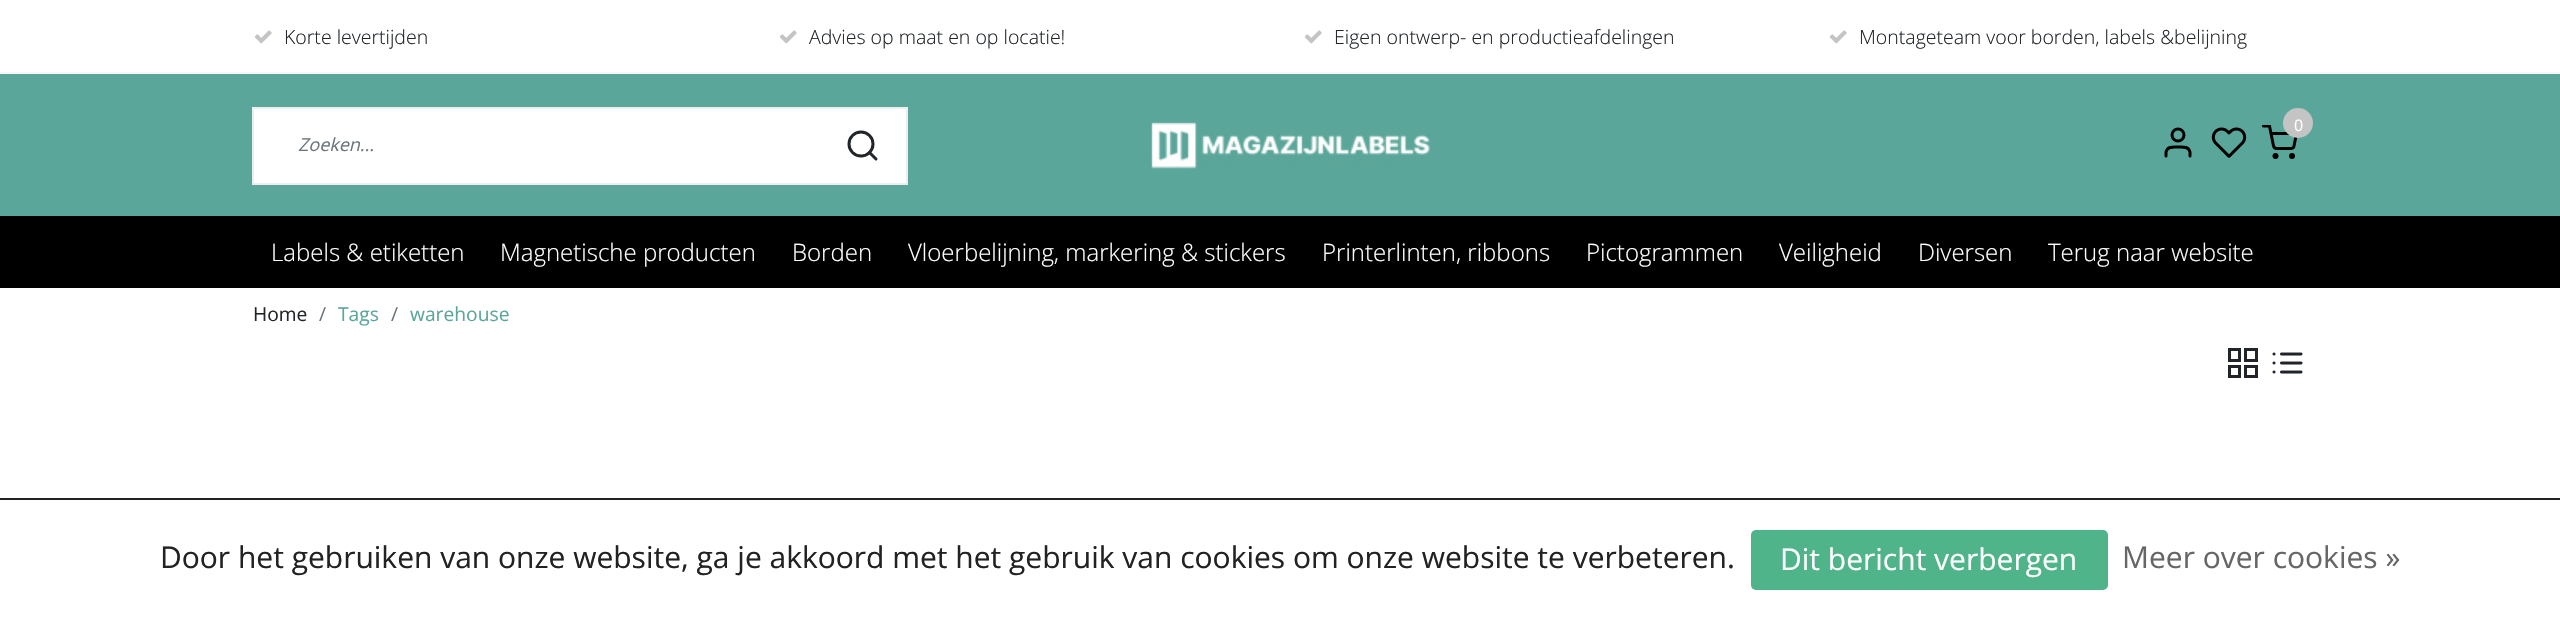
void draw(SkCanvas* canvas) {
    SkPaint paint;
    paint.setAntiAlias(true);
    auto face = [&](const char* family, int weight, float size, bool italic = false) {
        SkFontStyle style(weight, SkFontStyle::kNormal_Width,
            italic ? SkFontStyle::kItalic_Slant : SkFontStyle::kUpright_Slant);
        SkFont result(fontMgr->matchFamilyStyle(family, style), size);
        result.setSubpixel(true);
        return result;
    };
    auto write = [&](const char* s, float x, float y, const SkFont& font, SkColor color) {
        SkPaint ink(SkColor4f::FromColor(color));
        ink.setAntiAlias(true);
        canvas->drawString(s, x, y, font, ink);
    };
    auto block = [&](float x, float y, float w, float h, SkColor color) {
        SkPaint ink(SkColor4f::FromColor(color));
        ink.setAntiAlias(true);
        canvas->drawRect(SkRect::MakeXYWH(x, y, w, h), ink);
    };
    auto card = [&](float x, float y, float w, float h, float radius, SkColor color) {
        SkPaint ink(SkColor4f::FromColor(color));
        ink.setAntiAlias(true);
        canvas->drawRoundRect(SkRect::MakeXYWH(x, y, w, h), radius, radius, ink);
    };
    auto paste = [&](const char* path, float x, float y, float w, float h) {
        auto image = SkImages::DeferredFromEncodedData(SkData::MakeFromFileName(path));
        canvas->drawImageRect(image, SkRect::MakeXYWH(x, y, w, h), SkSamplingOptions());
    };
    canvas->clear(SK_ColorWHITE);
    block(0, 72, 2560, 2, SkColorSetRGB(247, 247, 247));
    paste("pic1.png", 254, 30, 18, 14);
    auto kFont1 = face("Open Sans", 300, 19.5f);
    write("Korte levertijden", 284, 44, kFont1, SkColorSetRGB(33, 37, 41));
    paste("pic1.png", 779, 30, 18, 14);
    write("Advies op maat en op locatie!", 809, 44, kFont1, SkColorSetRGB(33, 37, 41));
    paste("pic1.png", 1304, 30, 18, 14);
    write("Eigen ontwerp- en productieafdelingen", 1334, 44, kFont1, SkColorSetRGB(33, 37, 41));
    paste("pic1.png", 1829, 30, 18, 14);
    write("Montageteam voor borden, labels &belijning", 1859, 44, kFont1, SkColorSetRGB(33, 37, 41));
    block(0, 74, 2560, 142, SkColorSetRGB(91, 166, 154));
    paint.setColor(SK_ColorWHITE);
    canvas->drawRect(SkRect::MakeXYWH(253, 108, 654, 76), paint);
    paint.setStyle(SkPaint::kStroke_Style);
    paint.setStrokeWidth(2);
    paint.setColor(SkColorSetRGB(238, 238, 238));
    canvas->drawRect(SkRect::MakeXYWH(253, 108, 654, 76), paint);
    auto kFont2 = face("Open Sans", 400, 18, true);
    write("Zoeken...", 298, 151, kFont2, SkColorSetRGB(108, 117, 125));
    paint.setStrokeWidth(3);
    paint.setColor(SkColorSetRGB(33, 37, 41));
    canvas->drawCircle(861, 144, 12, paint);
    paint.setStrokeCap(SkPaint::kRound_Cap);
    paint.setStrokeJoin(SkPaint::kRound_Join);
    canvas->drawPath(SkPathBuilder().moveTo(876, 159).lineTo(869.5f, 152.5f).detach(), paint);
    paste("pic2.png", 1151, 122, 279, 47);
    paint.setStrokeCap(SkPaint::kButt_Cap);
    paint.setStrokeJoin(SkPaint::kMiter_Join);
    paint.setColor(SK_ColorBLACK);
    canvas->drawCircle(2275.5f, 156, 1.5f, paint);
    canvas->drawCircle(2292, 156, 1.5f, paint);
    canvas->save();
    canvas->clipRect(SkRect::MakeXYWH(2262, 125, 36, 36));
    paint.setStrokeCap(SkPaint::kRound_Cap);
    paint.setStrokeJoin(SkPaint::kRound_Join);
    canvas->drawPath(SkPathBuilder().moveTo(2263.5f, 126).lineTo(2269.5f, 126).lineTo(2273.5f, 146).cubicTo(2274, 147.5f, 2275, 148.5f, 2276.5f, 148.5f).lineTo(2291, 148.5f).cubicTo(2292.5f, 148.5f, 2294, 147.5f, 2294, 146).lineTo(2296.5f, 133.5f).lineTo(2271, 133.5f).detach(), paint);
    canvas->restore();
    paint.setStyle(SkPaint::kFill_Style);
    paint.setColor(SkColorSetRGB(196, 196, 196));
    canvas->drawCircle(2298, 123, 15, paint);
    auto kFont3 = face("Open Sans", 400, 16);
    write("0", 2294, 131, kFont3, SK_ColorWHITE);
    paint.setStyle(SkPaint::kStroke_Style);
    paint.setColor(SK_ColorBLACK);
    canvas->drawPath(SkPathBuilder().moveTo(2190, 156).lineTo(2190, 152).cubicTo(2188.5f, 146, 2182.5f, 147, 2178, 147).cubicTo(2173.5f, 147, 2167.5f, 146, 2166, 152).lineTo(2166, 156).detach(), paint);
    paint.setStrokeCap(SkPaint::kButt_Cap);
    paint.setStrokeJoin(SkPaint::kMiter_Join);
    canvas->drawCircle(2178, 135, 6, paint);
    paste("pic3.png", 2211, 127, 36, 31);
    block(0, 216, 2560, 72, SK_ColorBLACK);
    auto kFont4 = face("Open Sans", 300, 24);
    write("Labels & etiketten", 271, 261, kFont4, SK_ColorWHITE);
    write("Magnetische producten", 500, 261, kFont4, SK_ColorWHITE);
    write("Borden", 792, 261, kFont4, SK_ColorWHITE);
    write("Vloerbelijning, markering & stickers", 908, 261, kFont4, SK_ColorWHITE);
    write("Printerlinten, ribbons", 1322, 261, kFont4, SK_ColorWHITE);
    write("Pictogrammen", 1586, 261, kFont4, SK_ColorWHITE);
    write("Veiligheid", 1779, 261, kFont4, SK_ColorWHITE);
    write("Diversen", 1918, 261, kFont4, SK_ColorWHITE);
    write("Terug naar website", 2048, 261, kFont4, SK_ColorWHITE);
    auto kFont5 = face("Open Sans", 400, 19.25f);
    write("Home", 253, 321, kFont5, SkColorSetRGB(33, 37, 41));
    write("/", 319, 321, kFont5, SkColorSetRGB(108, 117, 125));
    write("Tags", 338, 321, kFont5, SkColorSetRGB(91, 166, 154));
    write("/", 391, 321, kFont5, SkColorSetRGB(108, 117, 125));
    write("warehouse", 410, 321, kFont5, SkColorSetRGB(91, 166, 154));
    paint.setColor(SkColorSetRGB(33, 37, 41));
    canvas->drawRect(SkRect::MakeXYWH(2229.5f, 349.5f, 10, 11), paint);
    canvas->drawRect(SkRect::MakeXYWH(2245.5f, 349.5f, 11, 11), paint);
    canvas->drawRect(SkRect::MakeXYWH(2245.5f, 366.5f, 11, 10), paint);
    canvas->drawRect(SkRect::MakeXYWH(2229.5f, 366.5f, 10, 10), paint);
    paste("pic4.png", 2272, 352, 31, 22);
    block(0, 498, 2560, 2, SkColorSetRGB(34, 34, 34));
    auto kFont6 = face("Open Sans", 400, 30);
    write("Door het gebruiken van onze website, ga je akkoord met het gebruik van cookies om onze website te verbeteren.", 160, 568, kFont6, SkColorSetRGB(34, 34, 34));
    card(1751, 530, 357, 60, 5, SkColorSetRGB(80, 180, 138));
    write("Dit bericht verbergen", 1780, 570, kFont6, SK_ColorWHITE);
    write("Meer over cookies »", 2122, 568, kFont6, SkColorSetRGB(102, 102, 102));
}
